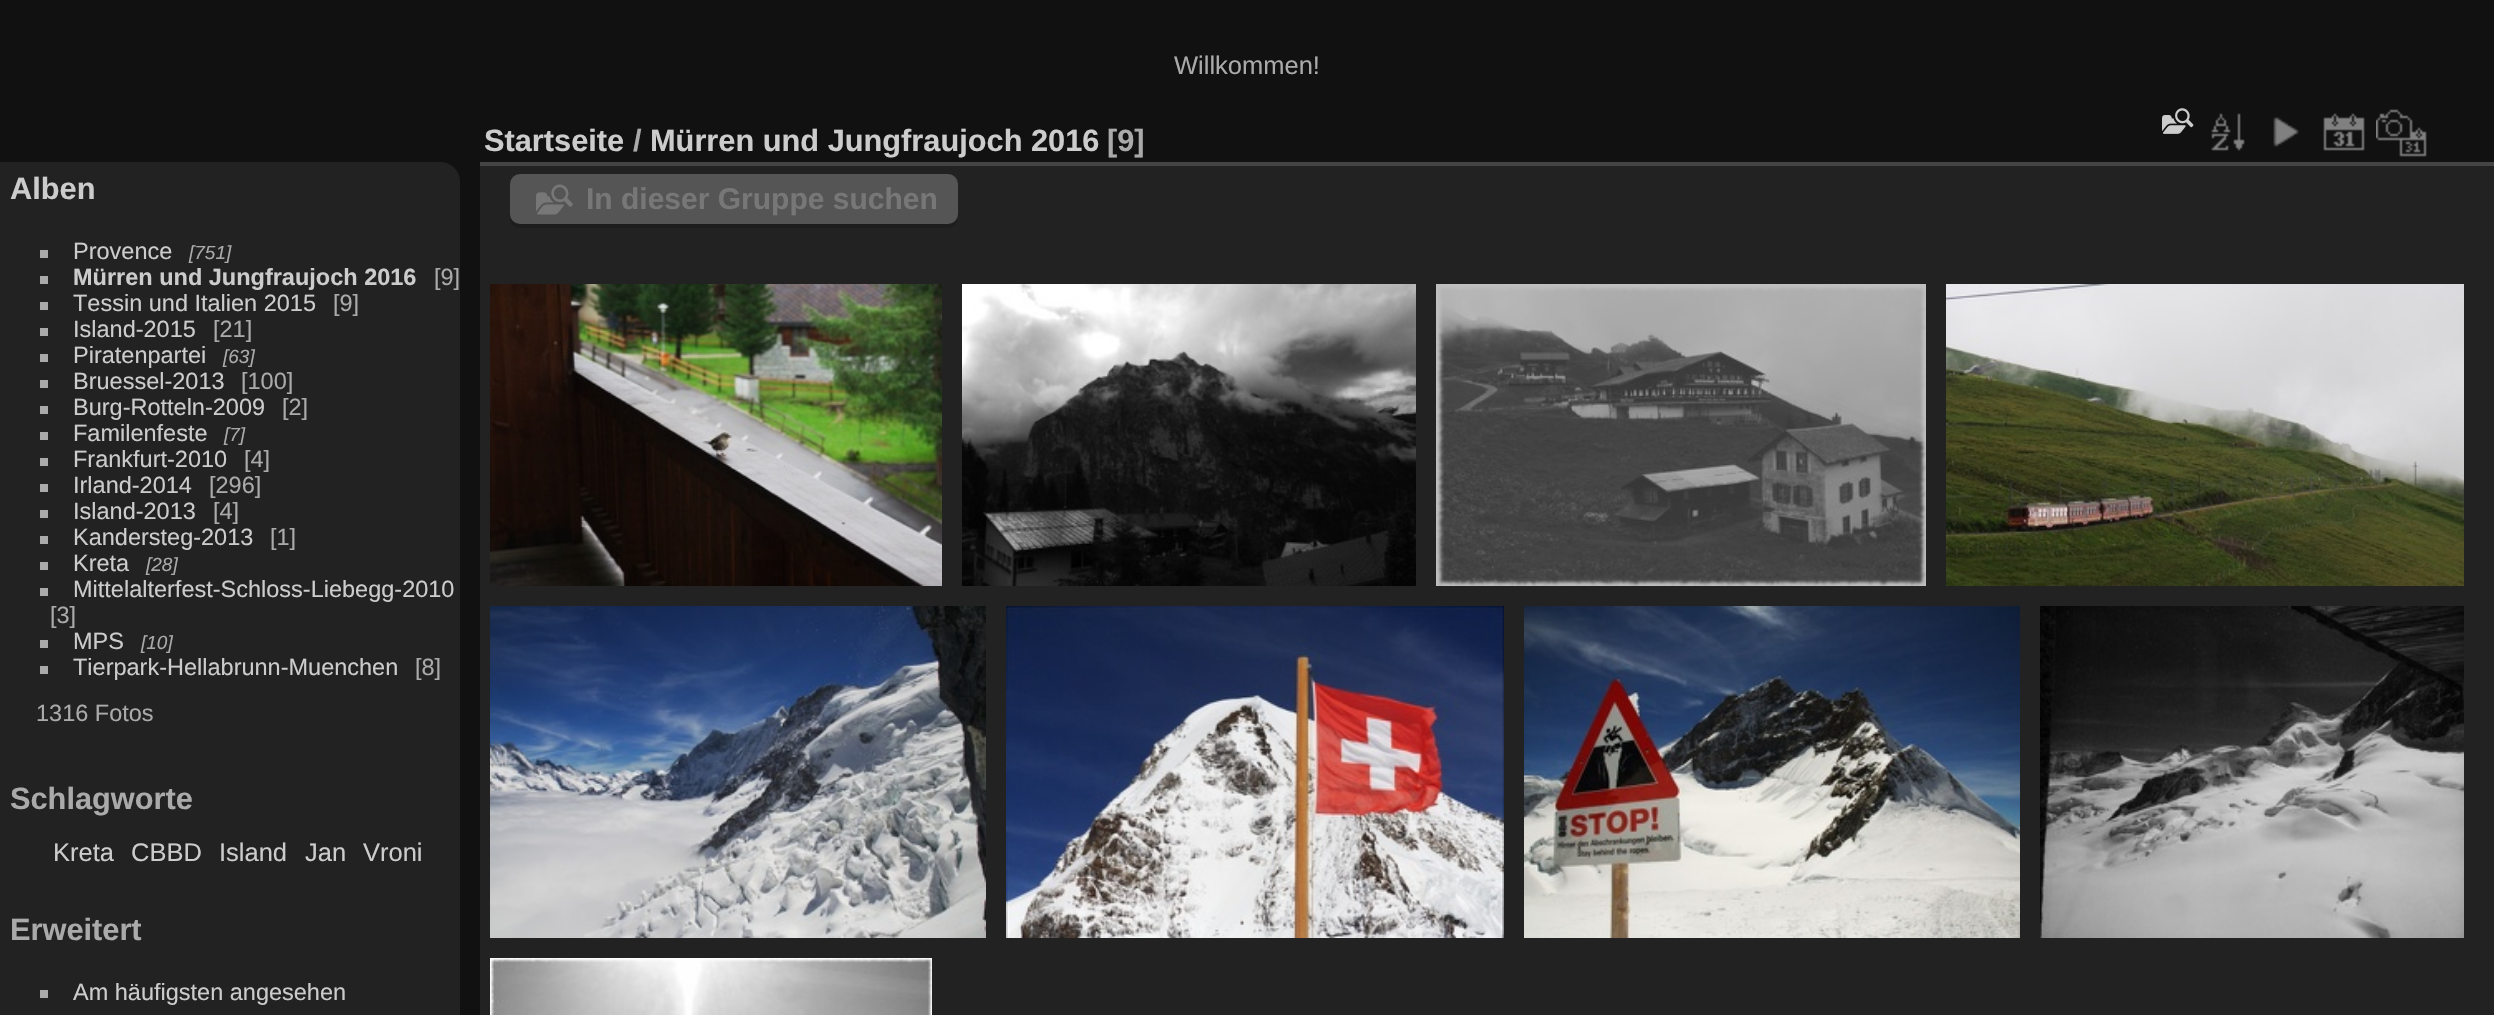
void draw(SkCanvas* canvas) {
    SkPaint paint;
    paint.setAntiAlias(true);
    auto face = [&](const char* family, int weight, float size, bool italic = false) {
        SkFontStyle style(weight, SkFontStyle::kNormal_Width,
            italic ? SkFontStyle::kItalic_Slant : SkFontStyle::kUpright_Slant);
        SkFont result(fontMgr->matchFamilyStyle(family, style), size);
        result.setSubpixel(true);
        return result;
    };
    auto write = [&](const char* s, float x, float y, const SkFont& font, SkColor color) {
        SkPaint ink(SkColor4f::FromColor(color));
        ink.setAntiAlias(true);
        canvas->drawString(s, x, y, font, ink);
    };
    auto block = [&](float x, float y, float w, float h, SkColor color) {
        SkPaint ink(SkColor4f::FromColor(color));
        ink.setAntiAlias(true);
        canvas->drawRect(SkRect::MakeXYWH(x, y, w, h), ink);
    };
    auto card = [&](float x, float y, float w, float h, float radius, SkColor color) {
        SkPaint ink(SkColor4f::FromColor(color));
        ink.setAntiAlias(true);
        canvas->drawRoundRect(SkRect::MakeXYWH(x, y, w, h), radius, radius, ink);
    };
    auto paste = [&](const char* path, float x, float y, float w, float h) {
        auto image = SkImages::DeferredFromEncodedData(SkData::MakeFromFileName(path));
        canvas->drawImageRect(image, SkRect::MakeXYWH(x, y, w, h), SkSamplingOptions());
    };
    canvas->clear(SkColorSetRGB(17, 17, 17));
    auto kFont1 = face("Liberation Sans", 400, 25.5f);
    write("Willkommen!", 1174, 74, kFont1, SkColorSetRGB(170, 170, 170));
    paint.setColor(SkColorSetRGB(34, 34, 34));
    canvas->drawPath(SkPathBuilder().moveTo(0, 162).lineTo(440, 162).cubicTo(451, 162, 460, 171, 460, 182).lineTo(460, 1015).cubicTo(460, 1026, 451, 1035, 440, 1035).lineTo(0, 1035).close().detach(), paint);
    auto kFont2 = face("Liberation Sans", 700, 30.75f);
    write("Alben", 10, 199, kFont2, SkColorSetRGB(204, 204, 204));
    block(40, 250, 8, 8, SkColorSetRGB(170, 170, 170));
    auto kFont3 = face("Liberation Sans", 400, 23.5f);
    write("Provence", 73, 259, kFont3, SkColorSetRGB(204, 204, 204));
    auto kFont4 = face("Liberation Sans", 400, 19, true);
    write("[751]", 189, 259, kFont4, SkColorSetRGB(170, 170, 170));
    block(40, 276, 8, 8, SkColorSetRGB(170, 170, 170));
    auto kFont5 = face("Liberation Sans", 700, 23.5f);
    write("Mürren und Jungfraujoch 2016", 73, 285, kFont5, SkColorSetRGB(204, 204, 204));
    write("[9]", 434, 285, kFont3, SkColorSetRGB(170, 170, 170));
    block(40, 302, 8, 8, SkColorSetRGB(170, 170, 170));
    write("Tessin und Italien 2015", 73, 311, kFont3, SkColorSetRGB(204, 204, 204));
    write("[9]", 333, 311, kFont3, SkColorSetRGB(170, 170, 170));
    block(40, 328, 8, 8, SkColorSetRGB(170, 170, 170));
    write("Island-2015", 73, 337, kFont3, SkColorSetRGB(204, 204, 204));
    write("[21]", 213, 337, kFont3, SkColorSetRGB(170, 170, 170));
    block(40, 354, 8, 8, SkColorSetRGB(170, 170, 170));
    write("Piratenpartei", 73, 363, kFont3, SkColorSetRGB(204, 204, 204));
    write("[63]", 223, 363, kFont4, SkColorSetRGB(170, 170, 170));
    block(40, 380, 8, 8, SkColorSetRGB(170, 170, 170));
    write("Bruessel-2013", 73, 389, kFont3, SkColorSetRGB(204, 204, 204));
    write("[100]", 241, 389, kFont3, SkColorSetRGB(170, 170, 170));
    block(40, 406, 8, 8, SkColorSetRGB(170, 170, 170));
    write("Burg-Rotteln-2009", 73, 415, kFont3, SkColorSetRGB(204, 204, 204));
    write("[2]", 282, 415, kFont3, SkColorSetRGB(170, 170, 170));
    block(40, 432, 8, 8, SkColorSetRGB(170, 170, 170));
    write("Familenfeste", 73, 441, kFont3, SkColorSetRGB(204, 204, 204));
    write("[7]", 224, 441, kFont4, SkColorSetRGB(170, 170, 170));
    block(40, 458, 8, 8, SkColorSetRGB(170, 170, 170));
    write("Frankfurt-2010", 73, 467, kFont3, SkColorSetRGB(204, 204, 204));
    write("[4]", 244, 467, kFont3, SkColorSetRGB(170, 170, 170));
    block(40, 484, 8, 8, SkColorSetRGB(170, 170, 170));
    write("Irland-2014", 73, 493, kFont3, SkColorSetRGB(204, 204, 204));
    write("[296]", 209, 493, kFont3, SkColorSetRGB(170, 170, 170));
    block(40, 510, 8, 8, SkColorSetRGB(170, 170, 170));
    write("Island-2013", 73, 519, kFont3, SkColorSetRGB(204, 204, 204));
    write("[4]", 213, 519, kFont3, SkColorSetRGB(170, 170, 170));
    block(40, 536, 8, 8, SkColorSetRGB(170, 170, 170));
    write("Kandersteg-2013", 73, 545, kFont3, SkColorSetRGB(204, 204, 204));
    write("[1]", 270, 545, kFont3, SkColorSetRGB(170, 170, 170));
    block(40, 562, 8, 8, SkColorSetRGB(170, 170, 170));
    write("Kreta", 73, 571, kFont3, SkColorSetRGB(204, 204, 204));
    write("[28]", 146, 571, kFont4, SkColorSetRGB(170, 170, 170));
    block(40, 588, 8, 8, SkColorSetRGB(170, 170, 170));
    write("Mittelalterfest-Schloss-Liebegg-2010", 73, 597, kFont3, SkColorSetRGB(204, 204, 204));
    write("[3]", 50, 623, kFont3, SkColorSetRGB(170, 170, 170));
    block(40, 640, 8, 8, SkColorSetRGB(170, 170, 170));
    write("MPS", 73, 649, kFont3, SkColorSetRGB(204, 204, 204));
    write("[10]", 141, 649, kFont4, SkColorSetRGB(170, 170, 170));
    block(40, 666, 8, 8, SkColorSetRGB(170, 170, 170));
    write("Tierpark-Hellabrunn-Muenchen", 73, 675, kFont3, SkColorSetRGB(204, 204, 204));
    write("[8]", 415, 675, kFont3, SkColorSetRGB(170, 170, 170));
    write("1316 Fotos", 36, 721, kFont3, SkColorSetRGB(170, 170, 170));
    write("Schlagworte", 10, 809, kFont2, SkColorSetRGB(170, 170, 170));
    write("Kreta", 53, 861, kFont1, SkColorSetRGB(204, 204, 204));
    write("CBBD", 131, 861, kFont1, SkColorSetRGB(204, 204, 204));
    write("Island", 219, 861, kFont1, SkColorSetRGB(204, 204, 204));
    write("Jan", 305, 861, kFont1, SkColorSetRGB(204, 204, 204));
    write("Vroni", 363, 861, kFont1, SkColorSetRGB(204, 204, 204));
    write("Erweitert", 10, 940, kFont2, SkColorSetRGB(170, 170, 170));
    block(40, 990, 8, 8, SkColorSetRGB(170, 170, 170));
    write("Am häufigsten angesehen", 73, 1000, kFont3, SkColorSetRGB(204, 204, 204));
    block(480, 166, 2014, 849, SkColorSetRGB(34, 34, 34));
    block(480, 162, 2014, 4, SkColorSetRGB(68, 68, 68));
    write("Startseite", 484, 151, kFont2, SkColorSetRGB(204, 204, 204));
    write("/", 633, 151, kFont2, SkColorSetRGB(170, 170, 170));
    write("Mürren und Jungfraujoch 2016", 650, 151, kFont2, SkColorSetRGB(204, 204, 204));
    write("[9]", 1107, 151, kFont2, SkColorSetRGB(170, 170, 170));
    paste("pic1.png", 2162, 108, 32, 26);
    paste("pic2.png", 2211, 113, 34, 38);
    paste("pic3.png", 2273, 117, 26, 30);
    paste("pic4.png", 2323, 113, 42, 38);
    paste("pic5.png", 2376, 109, 51, 48);
    paint.setColor(SkColorSetRGB(29, 29, 29));
    canvas->drawPath(SkPathBuilder().moveTo(510, 214).lineTo(510, 218).cubicTo(510, 224, 514, 228, 520, 228).lineTo(948, 228).cubicTo(954, 228, 958, 224, 958, 218).lineTo(958, 214).cubicTo(958, 220, 954, 224, 948, 224).lineTo(520, 224).cubicTo(514, 224, 510, 220, 510, 214).close().detach(), paint);
    card(510, 174, 448, 50, 10, SkColorSetRGB(85, 85, 85));
    paste("pic6.png", 536, 184, 37, 31);
    auto kFont6 = face("Liberation Sans", 700, 30);
    write("In dieser Gruppe suchen", 586, 209, kFont6, SkColorSetRGB(119, 119, 119));
    paste("pic7.png", 490, 284, 452, 302);
    paste("pic8.png", 962, 284, 454, 302);
    paste("pic9.png", 1436, 284, 490, 302);
    paste("pic10.png", 1946, 284, 518, 302);
    paste("pic11.png", 490, 606, 496, 332);
    paste("pic12.png", 1006, 606, 498, 332);
    paste("pic13.png", 1524, 606, 496, 332);
    paste("pic14.png", 2040, 606, 424, 332);
    paste("pic15.png", 490, 958, 442, 57);
}
